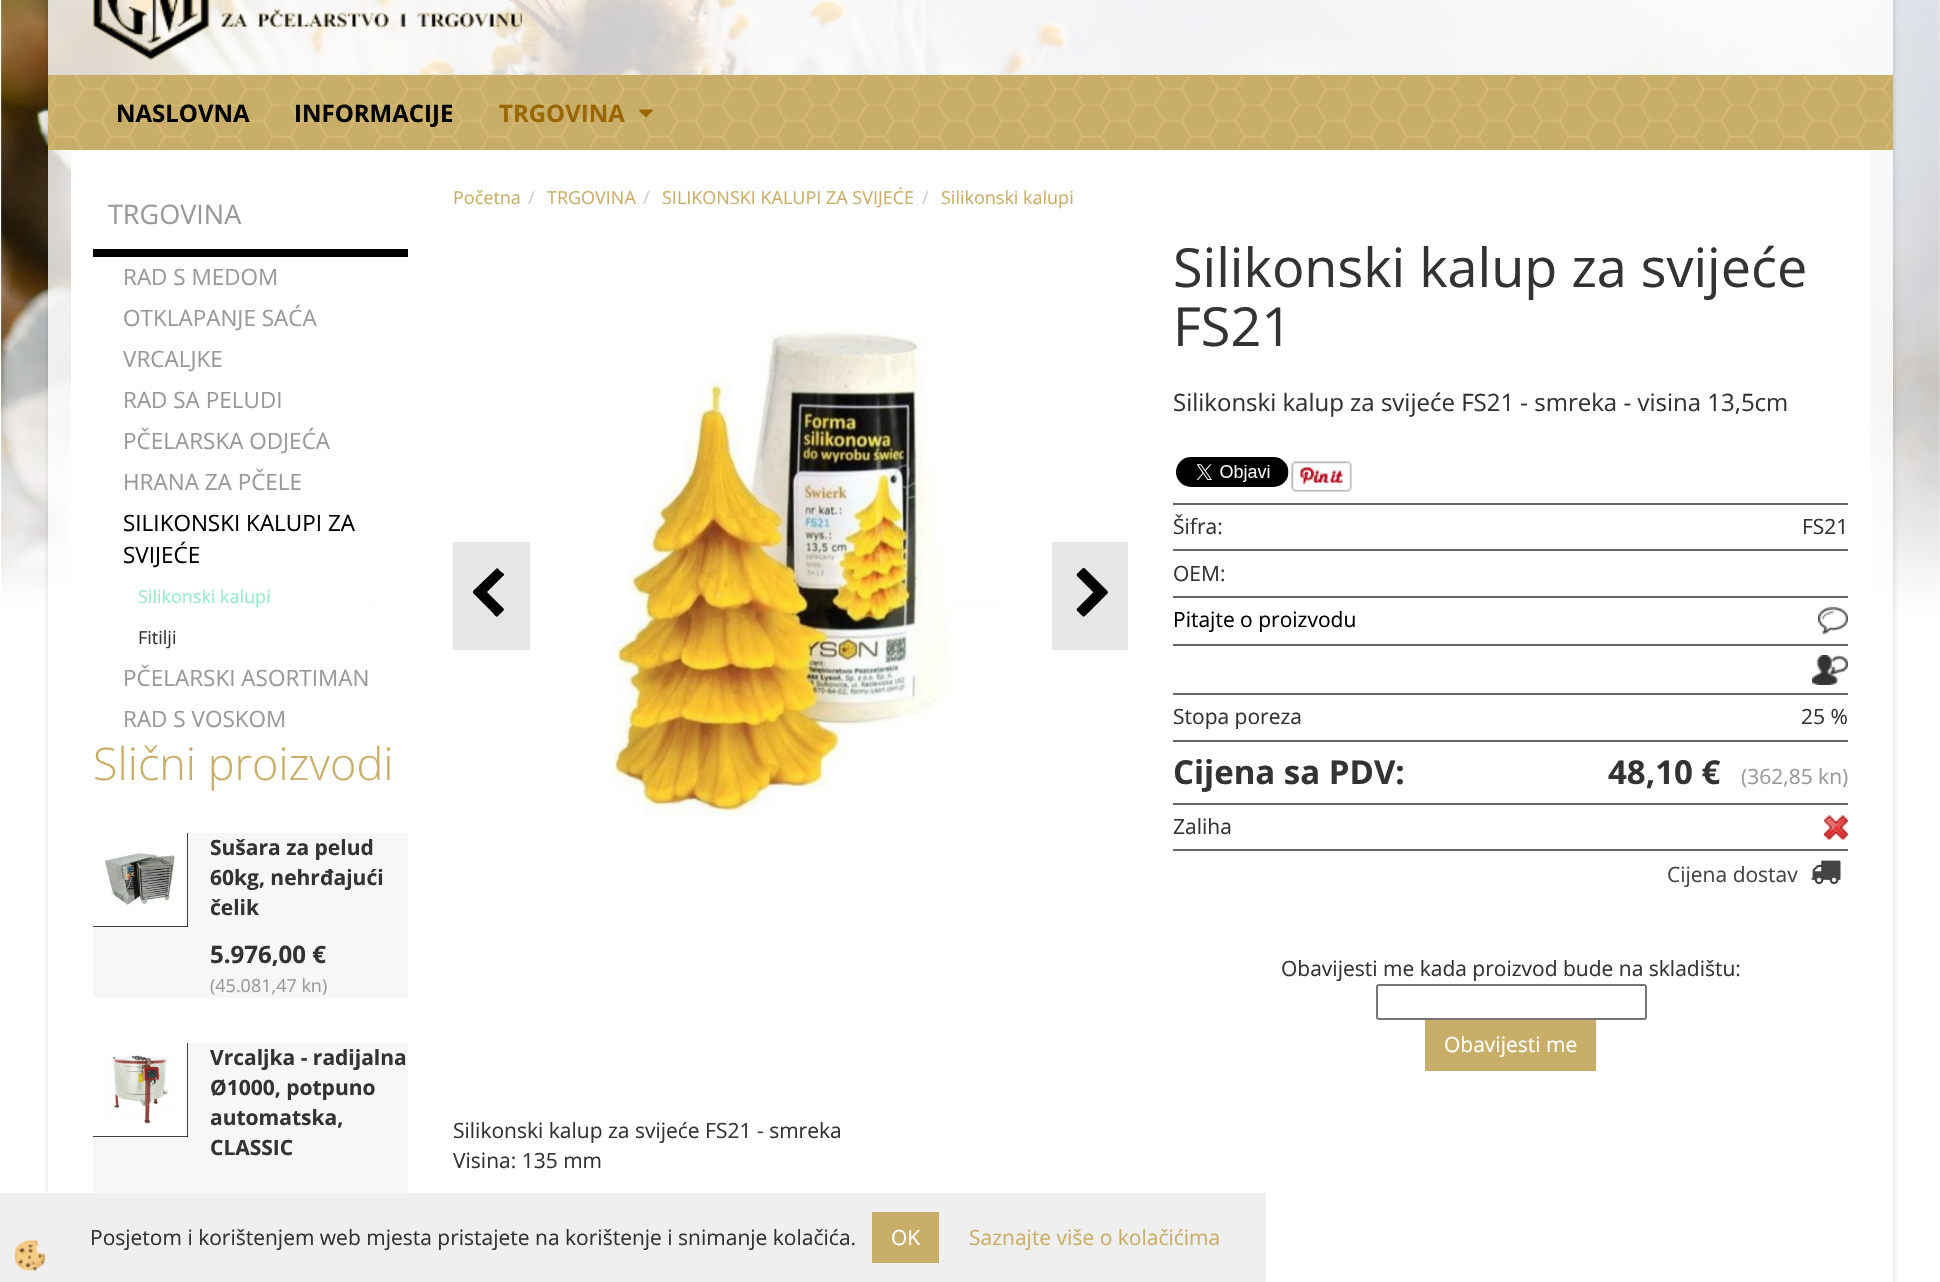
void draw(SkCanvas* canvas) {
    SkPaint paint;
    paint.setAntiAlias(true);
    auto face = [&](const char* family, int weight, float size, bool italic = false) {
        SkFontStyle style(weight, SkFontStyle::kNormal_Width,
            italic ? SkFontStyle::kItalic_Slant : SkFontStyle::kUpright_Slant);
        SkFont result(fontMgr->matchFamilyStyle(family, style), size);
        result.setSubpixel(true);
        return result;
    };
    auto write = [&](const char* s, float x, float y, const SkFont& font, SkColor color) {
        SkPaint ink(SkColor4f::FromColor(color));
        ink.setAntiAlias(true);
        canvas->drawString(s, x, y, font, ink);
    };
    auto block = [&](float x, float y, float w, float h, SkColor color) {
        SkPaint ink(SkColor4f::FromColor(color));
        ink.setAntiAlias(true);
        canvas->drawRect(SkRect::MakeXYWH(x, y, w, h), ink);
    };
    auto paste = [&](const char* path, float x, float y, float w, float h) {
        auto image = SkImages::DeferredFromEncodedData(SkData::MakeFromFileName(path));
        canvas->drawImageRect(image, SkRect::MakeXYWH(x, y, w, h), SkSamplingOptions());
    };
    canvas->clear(SK_ColorWHITE);
    paste("pic1.png", 0, 0, 1940, 617);
    paste("pic2.png", 0, 362, 1940, 257);
    canvas->save();
    canvas->clipPath(SkPathBuilder(SkPathFillType::kEvenOdd).moveTo(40, 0).lineTo(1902, 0).lineTo(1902, 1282).lineTo(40, 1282).close().moveTo(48, -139).lineTo(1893, -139).lineTo(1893, 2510).lineTo(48, 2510).close().detach(), true);
    paint.setColor(SkColorSetARGB(23, 0, 0, 0));
    paint.setMaskFilter(SkMaskFilter::MakeBlur(kNormal_SkBlurStyle, 2));
    canvas->drawRect(SkRect::MakeXYWH(47, -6, 1848, 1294), paint);
    paint.setMaskFilter(nullptr);
    canvas->restore();
    paste("pic3.png", 93, 0, 429, 60);
    block(48, 75, 1845, 75, SkColorSetRGB(200, 174, 105));
    paste("pic4.png", 48, 74, 1845, 76);
    auto kFont1 = face("Open Sans", 700, 24);
    write("NASLOVNA", 116, 122, kFont1, SK_ColorBLACK);
    write("INFORMACIJE", 294, 122, kFont1, SK_ColorBLACK);
    write("TRGOVINA", 499, 122, kFont1, SkColorSetRGB(153, 102, 0));
    paste("pic5.png", 639, 109, 14, 9);
    block(71, 150, 1800, 449, SK_ColorWHITE);
    block(93, 249, 315, 8, SK_ColorBLACK);
    auto kFont2 = face("Open Sans", 400, 27);
    write("TRGOVINA", 108, 224, kFont2, SkColorSetRGB(153, 153, 153));
    auto kFont3 = face("Open Sans", 400, 22.5f);
    write("RAD S MEDOM", 123, 285, kFont3, SkColorSetRGB(153, 153, 153));
    write("OTKLAPANJE SAĆA", 123, 326, kFont3, SkColorSetRGB(153, 153, 153));
    write("VRCALJKE", 123, 367, kFont3, SkColorSetRGB(153, 153, 153));
    write("RAD SA PELUDI", 123, 408, kFont3, SkColorSetRGB(153, 153, 153));
    write("PČELARSKA ODJEĆA", 123, 449, kFont3, SkColorSetRGB(153, 153, 153));
    write("HRANA ZA PČELE", 123, 490, kFont3, SkColorSetRGB(153, 153, 153));
    write("SILIKONSKI KALUPI ZA", 123, 531, kFont3, SK_ColorBLACK);
    write("SVIJEĆE", 123, 563, kFont3, SK_ColorBLACK);
    auto kFont4 = face("Open Sans", 400, 18);
    write("Silikonski kalupi", 138, 603, kFont4, SkColorSetRGB(151, 236, 198));
    write("Fitilji", 138, 644, kFont4, SkColorSetRGB(51, 51, 51));
    write("PČELARSKI ASORTIMAN", 123, 686, kFont3, SkColorSetRGB(153, 153, 153));
    write("RAD S VOSKOM", 123, 727, kFont3, SkColorSetRGB(153, 153, 153));
    auto kFont5 = face("Open Sans", 300, 45);
    write("Slični proizvodi", 93, 780, kFont5, SkColorSetRGB(200, 174, 105));
    block(93, 833, 315, 165, SkColorSetRGB(247, 247, 247));
    block(93, 833, 95, 94, SK_ColorBLACK);
    paste("pic6.png", 93, 833, 95, 94);
    auto kFont6 = face("Open Sans", 700, 21);
    write("Sušara za pelud", 210, 855, kFont6, SkColorSetRGB(51, 51, 51));
    write("60kg, nehrđajući", 210, 885, kFont6, SkColorSetRGB(51, 51, 51));
    write("čelik", 210, 915, kFont6, SkColorSetRGB(51, 51, 51));
    write("5.976,00 €", 210, 963, kFont1, SkColorSetRGB(51, 51, 51));
    write("(45.081,47 kn)", 210, 992, kFont4, SkColorSetRGB(153, 153, 153));
    block(93, 1043, 315, 150, SkColorSetRGB(247, 247, 247));
    block(93, 1043, 95, 94, SK_ColorBLACK);
    paste("pic7.png", 93, 1043, 95, 94);
    write("Vrcaljka - radijalna", 210, 1065, kFont6, SkColorSetRGB(51, 51, 51));
    write("Ø1000, potpuno", 210, 1095, kFont6, SkColorSetRGB(51, 51, 51));
    write("automatska,", 210, 1125, kFont6, SkColorSetRGB(51, 51, 51));
    write("CLASSIC", 210, 1155, kFont6, SkColorSetRGB(51, 51, 51));
    write("Početna", 453, 204, kFont4, SkColorSetRGB(200, 174, 105));
    write("/", 528, 204, kFont4, SkColorSetRGB(204, 204, 204));
    write("TRGOVINA", 547, 204, kFont4, SkColorSetRGB(200, 174, 105));
    write("/", 643, 204, kFont4, SkColorSetRGB(204, 204, 204));
    write("SILIKONSKI KALUPI ZA SVIJEĆE", 662, 204, kFont4, SkColorSetRGB(200, 174, 105));
    write("/", 922, 204, kFont4, SkColorSetRGB(204, 204, 204));
    write("Silikonski kalupi", 941, 204, kFont4, SkColorSetRGB(200, 174, 105));
    block(453, 542, 77, 108, SkColorSetRGB(230, 230, 230));
    paint.setColor(SK_ColorBLACK);
    canvas->drawPath(SkPathBuilder().moveTo(503, 576).lineTo(487, 592).lineTo(501, 606).cubicTo(505, 610, 505, 609, 501, 613).cubicTo(496, 618, 497, 618, 492, 612).lineTo(473, 593).lineTo(473, 591).lineTo(496, 569).cubicTo(497, 567, 499, 569, 500, 571).lineTo(504, 574).cubicTo(504, 575, 504, 576, 503, 576).close().detach(), paint);
    paste("pic8.png", 606, 330, 346, 486);
    block(1052, 542, 76, 108, SkColorSetRGB(230, 230, 230));
    paste("pic9.png", 1076, 568, 32, 49);
    auto kFont7 = face("Open Sans", 400, 54);
    write("Silikonski kalup za svijeće", 1173, 287, kFont7, SkColorSetRGB(51, 51, 51));
    write("FS21", 1173, 346, kFont7, SkColorSetRGB(51, 51, 51));
    auto kFont8 = face("Open Sans", 400, 24);
    write("Silikonski kalup za svijeće FS21 - smreka - visina 13,5cm", 1173, 411, kFont8, SkColorSetRGB(51, 51, 51));
    block(1173, 503, 675, 2, SkColorSetRGB(102, 102, 102));
    paste("pic10.png", 1176, 457, 113, 30);
    paste("pic11.png", 1291, 461, 61, 31);
    block(1173, 549, 675, 2, SkColorSetRGB(102, 102, 102));
    auto kFont9 = face("Open Sans", 400, 21);
    write("Šifra:", 1173, 534, kFont9, SkColorSetRGB(51, 51, 51));
    write("FS21", 1802, 534, kFont9, SkColorSetRGB(51, 51, 51));
    block(1173, 596, 675, 2, SkColorSetRGB(102, 102, 102));
    write("OEM:", 1173, 581, kFont9, SkColorSetRGB(51, 51, 51));
    block(1173, 644, 675, 2, SkColorSetRGB(102, 102, 102));
    write("Pitajte o proizvodu", 1173, 627, kFont9, SK_ColorBLACK);
    paste("pic12.png", 1818, 606, 30, 29);
    block(1173, 693, 675, 2, SkColorSetRGB(102, 102, 102));
    paste("pic13.png", 1812, 655, 36, 30);
    block(1173, 740, 675, 2, SkColorSetRGB(102, 102, 102));
    write("Stopa poreza", 1173, 724, kFont9, SkColorSetRGB(51, 51, 51));
    write("25 %", 1801, 724, kFont9, SkColorSetRGB(51, 51, 51));
    block(1173, 803, 675, 2, SkColorSetRGB(102, 102, 102));
    auto kFont10 = face("Open Sans", 700, 33);
    write("Cijena sa PDV:", 1173, 784, kFont10, SkColorSetRGB(51, 51, 51));
    write("48,10 €", 1608, 784, kFont10, SkColorSetRGB(51, 51, 51));
    write("(362,85 kn)", 1741, 784, kFont9, SkColorSetRGB(153, 153, 153));
    block(1173, 849, 675, 2, SkColorSetRGB(102, 102, 102));
    write("Zaliha", 1173, 834, kFont9, SkColorSetRGB(51, 51, 51));
    paste("pic14.png", 1824, 815, 24, 25);
    write("Cijena dostav", 1667, 882, kFont9, SkColorSetRGB(68, 68, 68));
    paste("pic15.png", 1811, 860, 30, 25);
    write("Obavijesti me kada proizvod bude na skladištu:", 1281, 976, kFont9, SkColorSetRGB(51, 51, 51));
    paint.setStyle(SkPaint::kStroke_Style);
    paint.setStrokeWidth(2);
    paint.setColor(SkColorSetRGB(118, 118, 118));
    canvas->drawRoundRect(SkRect::MakeXYWH(1377, 985, 269, 34), 2, 2, paint);
    block(1425, 1020, 171, 51, SkColorSetRGB(200, 174, 105));
    write("Obavijesti me", 1444, 1052, kFont9, SK_ColorWHITE);
    write("Silikonski kalup za svijeće FS21 - smreka", 453, 1138, kFont9, SkColorSetRGB(51, 51, 51));
    write("Visina: 135 mm", 453, 1168, kFont9, SkColorSetRGB(51, 51, 51));
    block(1, 1193, 1265, 89, SkColorSetRGB(239, 239, 239));
    paint.setStyle(SkPaint::kFill_Style);
    paint.setColor(SkColorSetRGB(239, 239, 239));
    canvas->drawPath(SkPathBuilder().moveTo(90, 1282).lineTo(0, 1282).lineTo(0, 1192).close().detach(), paint);
    paste("pic16.png", 14, 1240, 32, 31);
    write("Posjetom i korištenjem web mjesta pristajete na korištenje i snimanje kolačića.", 90, 1245, kFont9, SkColorSetRGB(51, 51, 51));
    block(872, 1212, 67, 51, SkColorSetRGB(200, 174, 105));
    write("OK", 891, 1245, kFont9, SK_ColorWHITE);
    write("Saznajte više o kolačićima", 969, 1245, kFont9, SkColorSetRGB(200, 174, 105));
}
